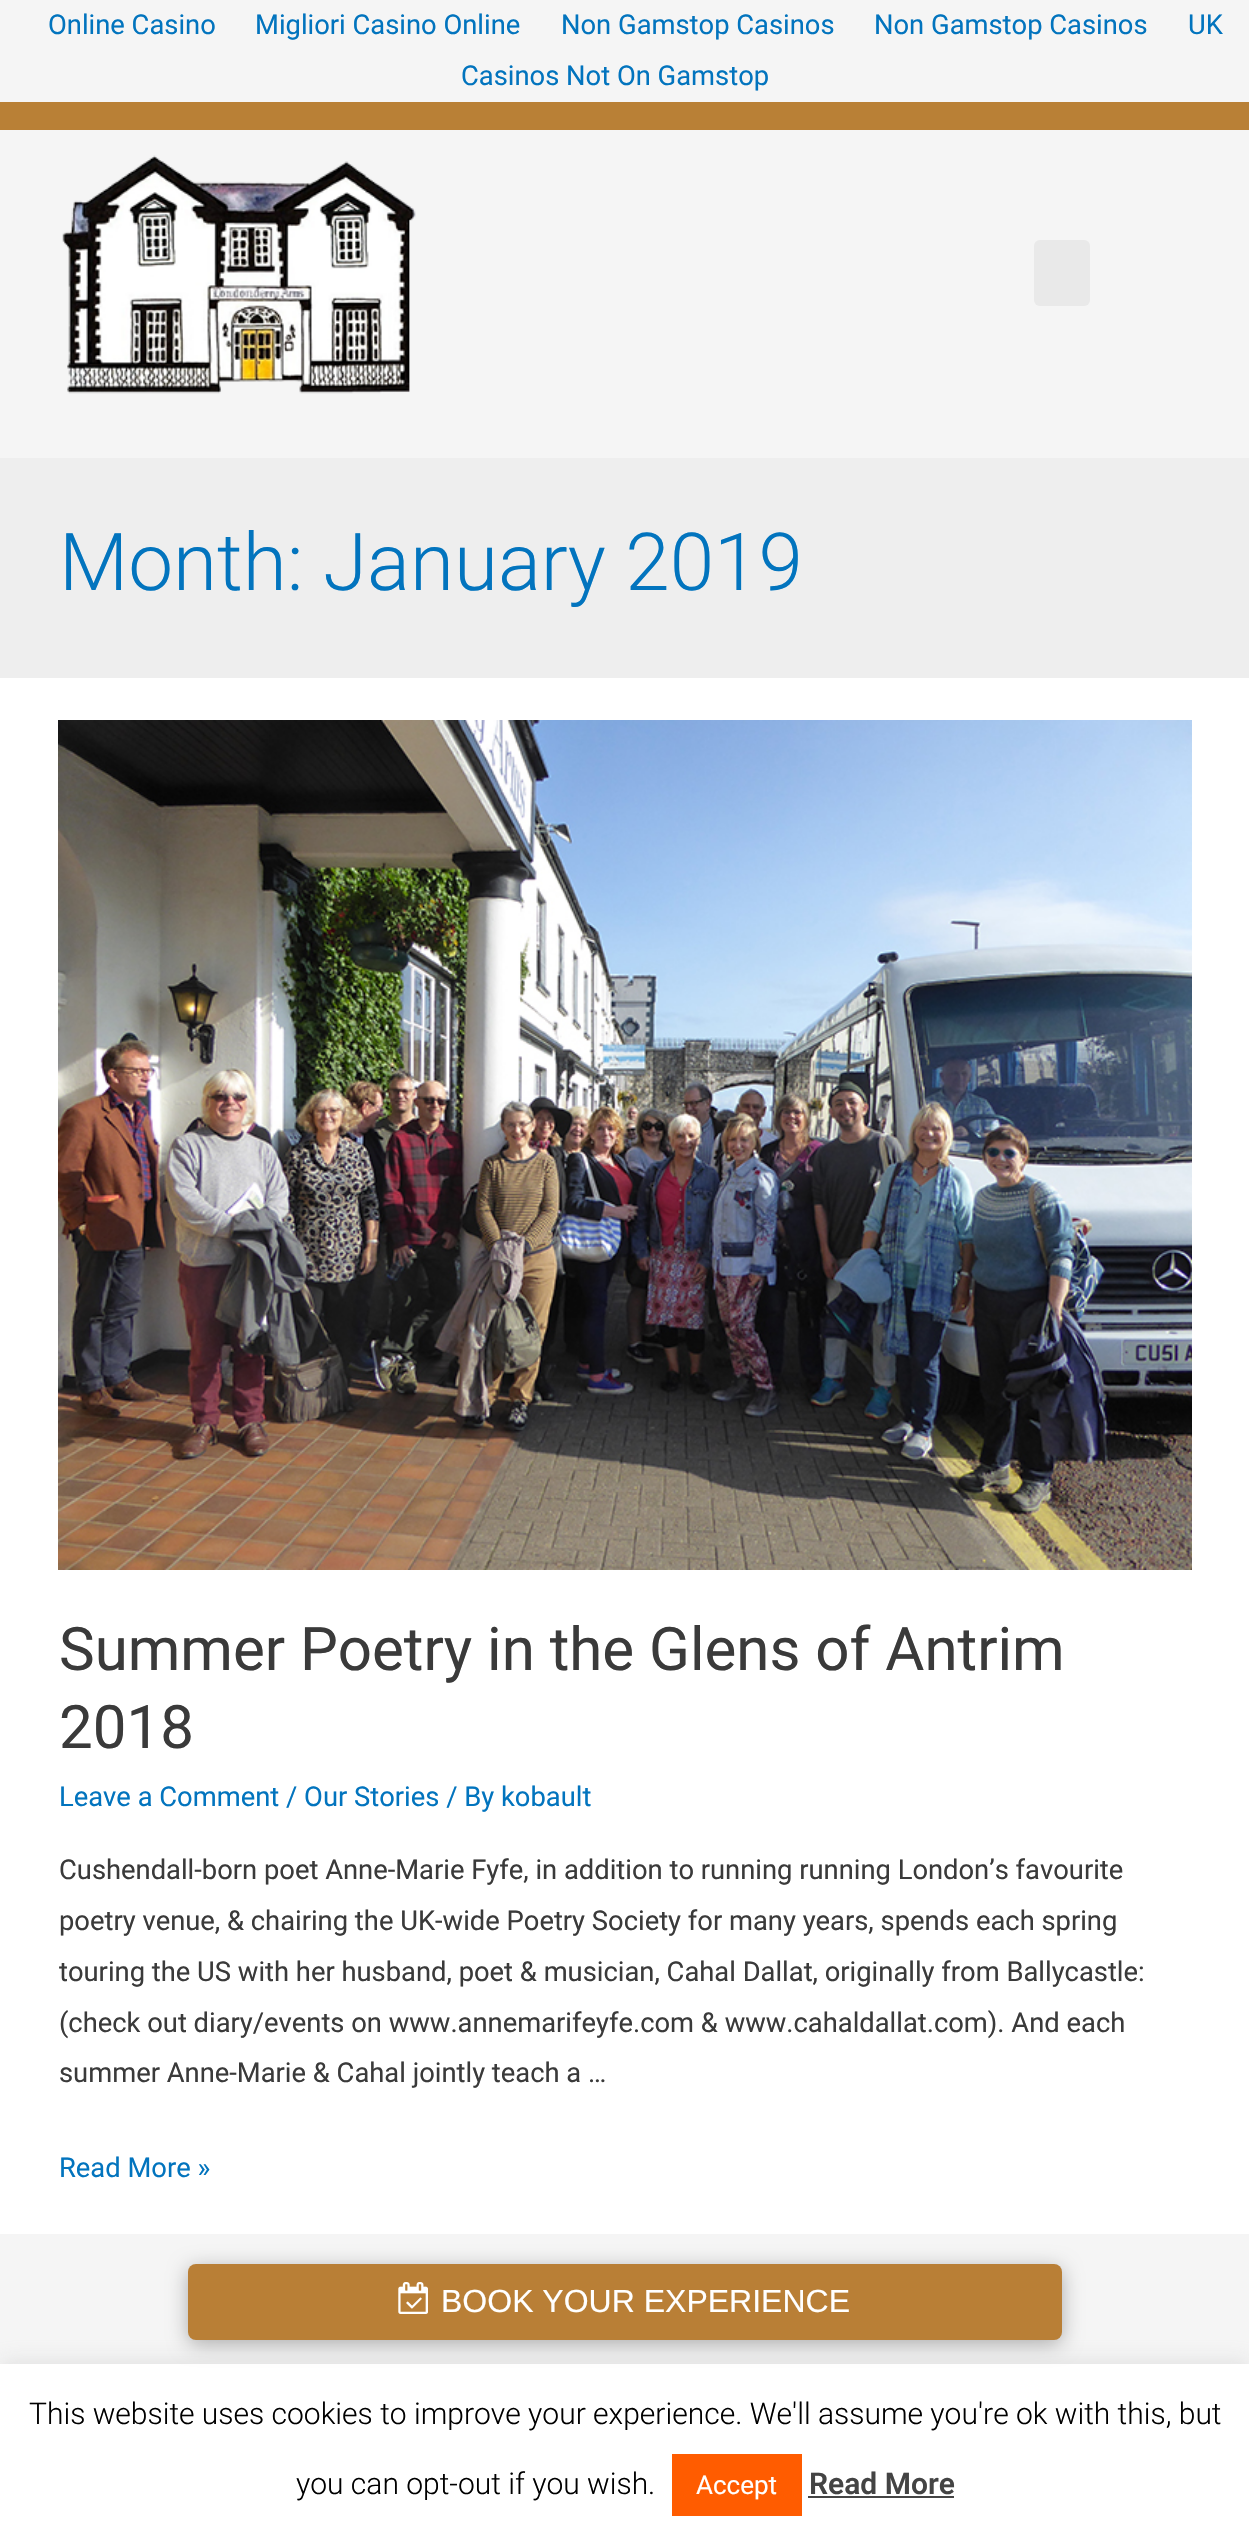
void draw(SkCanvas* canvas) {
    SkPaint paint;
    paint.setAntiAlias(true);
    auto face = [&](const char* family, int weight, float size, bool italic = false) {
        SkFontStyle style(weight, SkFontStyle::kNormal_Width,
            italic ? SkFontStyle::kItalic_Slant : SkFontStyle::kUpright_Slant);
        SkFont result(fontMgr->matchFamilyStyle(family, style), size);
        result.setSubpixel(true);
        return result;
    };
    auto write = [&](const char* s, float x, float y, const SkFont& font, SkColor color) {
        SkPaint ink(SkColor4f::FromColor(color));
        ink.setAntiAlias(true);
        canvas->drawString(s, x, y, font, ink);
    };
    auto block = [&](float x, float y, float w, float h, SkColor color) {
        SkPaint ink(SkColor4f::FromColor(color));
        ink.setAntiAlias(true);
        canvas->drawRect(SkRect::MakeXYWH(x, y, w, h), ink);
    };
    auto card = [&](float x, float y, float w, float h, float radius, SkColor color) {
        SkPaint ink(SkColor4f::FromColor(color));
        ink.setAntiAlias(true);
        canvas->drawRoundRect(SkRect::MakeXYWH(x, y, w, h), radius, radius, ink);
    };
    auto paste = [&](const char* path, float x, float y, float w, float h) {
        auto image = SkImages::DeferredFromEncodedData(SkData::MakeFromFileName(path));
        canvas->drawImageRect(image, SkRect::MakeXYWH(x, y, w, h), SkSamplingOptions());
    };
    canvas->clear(SkColorSetRGB(245, 245, 245));
    auto kFont1 = face("Roboto", 400, 27.35f);
    write("Online Casino", 48, 34, kFont1, SkColorSetRGB(2, 116, 190));
    write("Migliori Casino Online", 255, 34, kFont1, SkColorSetRGB(2, 116, 190));
    write("Non Gamstop Casinos", 561, 34, kFont1, SkColorSetRGB(2, 116, 190));
    write("Non Gamstop Casinos", 874, 34, kFont1, SkColorSetRGB(2, 116, 190));
    write("UK", 1188, 34, kFont1, SkColorSetRGB(2, 116, 190));
    write("Casinos Not On Gamstop", 461, 85, kFont1, SkColorSetRGB(2, 116, 190));
    block(0, 102, 1249, 28, SkColorSetRGB(185, 128, 54));
    paste("pic1.png", 62, 155, 354, 239);
    card(1034, 240, 56, 66, 6, SkColorSetRGB(233, 233, 233));
    block(0, 458, 1249, 220, SkColorSetRGB(238, 238, 238));
    auto kFont2 = face("Roboto", 300, 80);
    write("Month: January 2019", 59, 590, kFont2, SkColorSetRGB(2, 116, 190));
    block(0, 678, 1249, 1556, SK_ColorWHITE);
    paste("pic2.png", 58, 720, 1134, 850);
    auto kFont3 = face("Roboto", 400, 60);
    write("Summer Poetry in the Glens of Antrim", 59, 1670, kFont3, SkColorSetRGB(58, 58, 58));
    write("2018", 59, 1748, kFont3, SkColorSetRGB(58, 58, 58));
    write("Leave a Comment / Our Stories / By kobault", 59, 1806, kFont1, SkColorSetRGB(2, 116, 190));
    write("Cushendall-born poet Anne-Marie Fyfe, in addition to running running London’s favourite", 59, 1879, kFont1, SkColorSetRGB(58, 58, 58));
    write("poetry venue, & chairing the UK-wide Poetry Society for many years, spends each spring", 59, 1930, kFont1, SkColorSetRGB(58, 58, 58));
    write("touring the US with her husband, poet & musician, Cahal Dallat, originally from Ballycastle:", 59, 1981, kFont1, SkColorSetRGB(58, 58, 58));
    write("(check out diary/events on www.annemarifeyfe.com & www.cahaldallat.com). And each", 59, 2032, kFont1, SkColorSetRGB(58, 58, 58));
    write("summer Anne-Marie & Cahal jointly teach a …", 59, 2082, kFont1, SkColorSetRGB(58, 58, 58));
    write("Read More »", 59, 2177, kFont1, SkColorSetRGB(2, 116, 190));
    paint.setColor(SkColorSetARGB(77, 172, 171, 171));
    paint.setMaskFilter(SkMaskFilter::MakeBlur(kNormal_SkBlurStyle, 10));
    canvas->drawRect(SkRect::MakeXYWH(0, 2362, 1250, 176), paint);
    paint.setMaskFilter(nullptr);
    block(0, 2364, 1249, 175, SK_ColorWHITE);
    paint.setColor(SkColorSetARGB(77, 0, 0, 0));
    paint.setMaskFilter(SkMaskFilter::MakeBlur(kNormal_SkBlurStyle, 10));
    canvas->drawRoundRect(SkRect::MakeXYWH(188, 2268, 874, 76), 8, 8, paint);
    paint.setMaskFilter(nullptr);
    card(188, 2264, 874, 76, 8, SkColorSetRGB(185, 127, 54));
    paste("pic3.png", 398, 2282, 30, 32);
    auto kFont4 = face("Liberation Sans", 400, 32);
    write("BOOK YOUR EXPERIENCE", 441, 2312, kFont4, SK_ColorWHITE);
    auto kFont5 = face("Roboto", 300, 30);
    write("This website uses cookies to improve your experience. We'll assume you're ok with this, but", 29, 2424, kFont5, SK_ColorBLACK);
    write("you can opt-out if you wish.", 296, 2494, kFont5, SK_ColorBLACK);
    block(672, 2454, 130, 62, SkColorSetRGB(255, 92, 0));
    auto kFont6 = face("Roboto", 400, 26);
    write("Accept", 696, 2494, kFont6, SK_ColorWHITE);
    auto kFont7 = face("Roboto", 600, 30);
    write("Read More", 809, 2494, kFont7, SkColorSetRGB(68, 68, 68));
    block(808, 2496, 146, 2, SkColorSetRGB(68, 68, 68));
}
